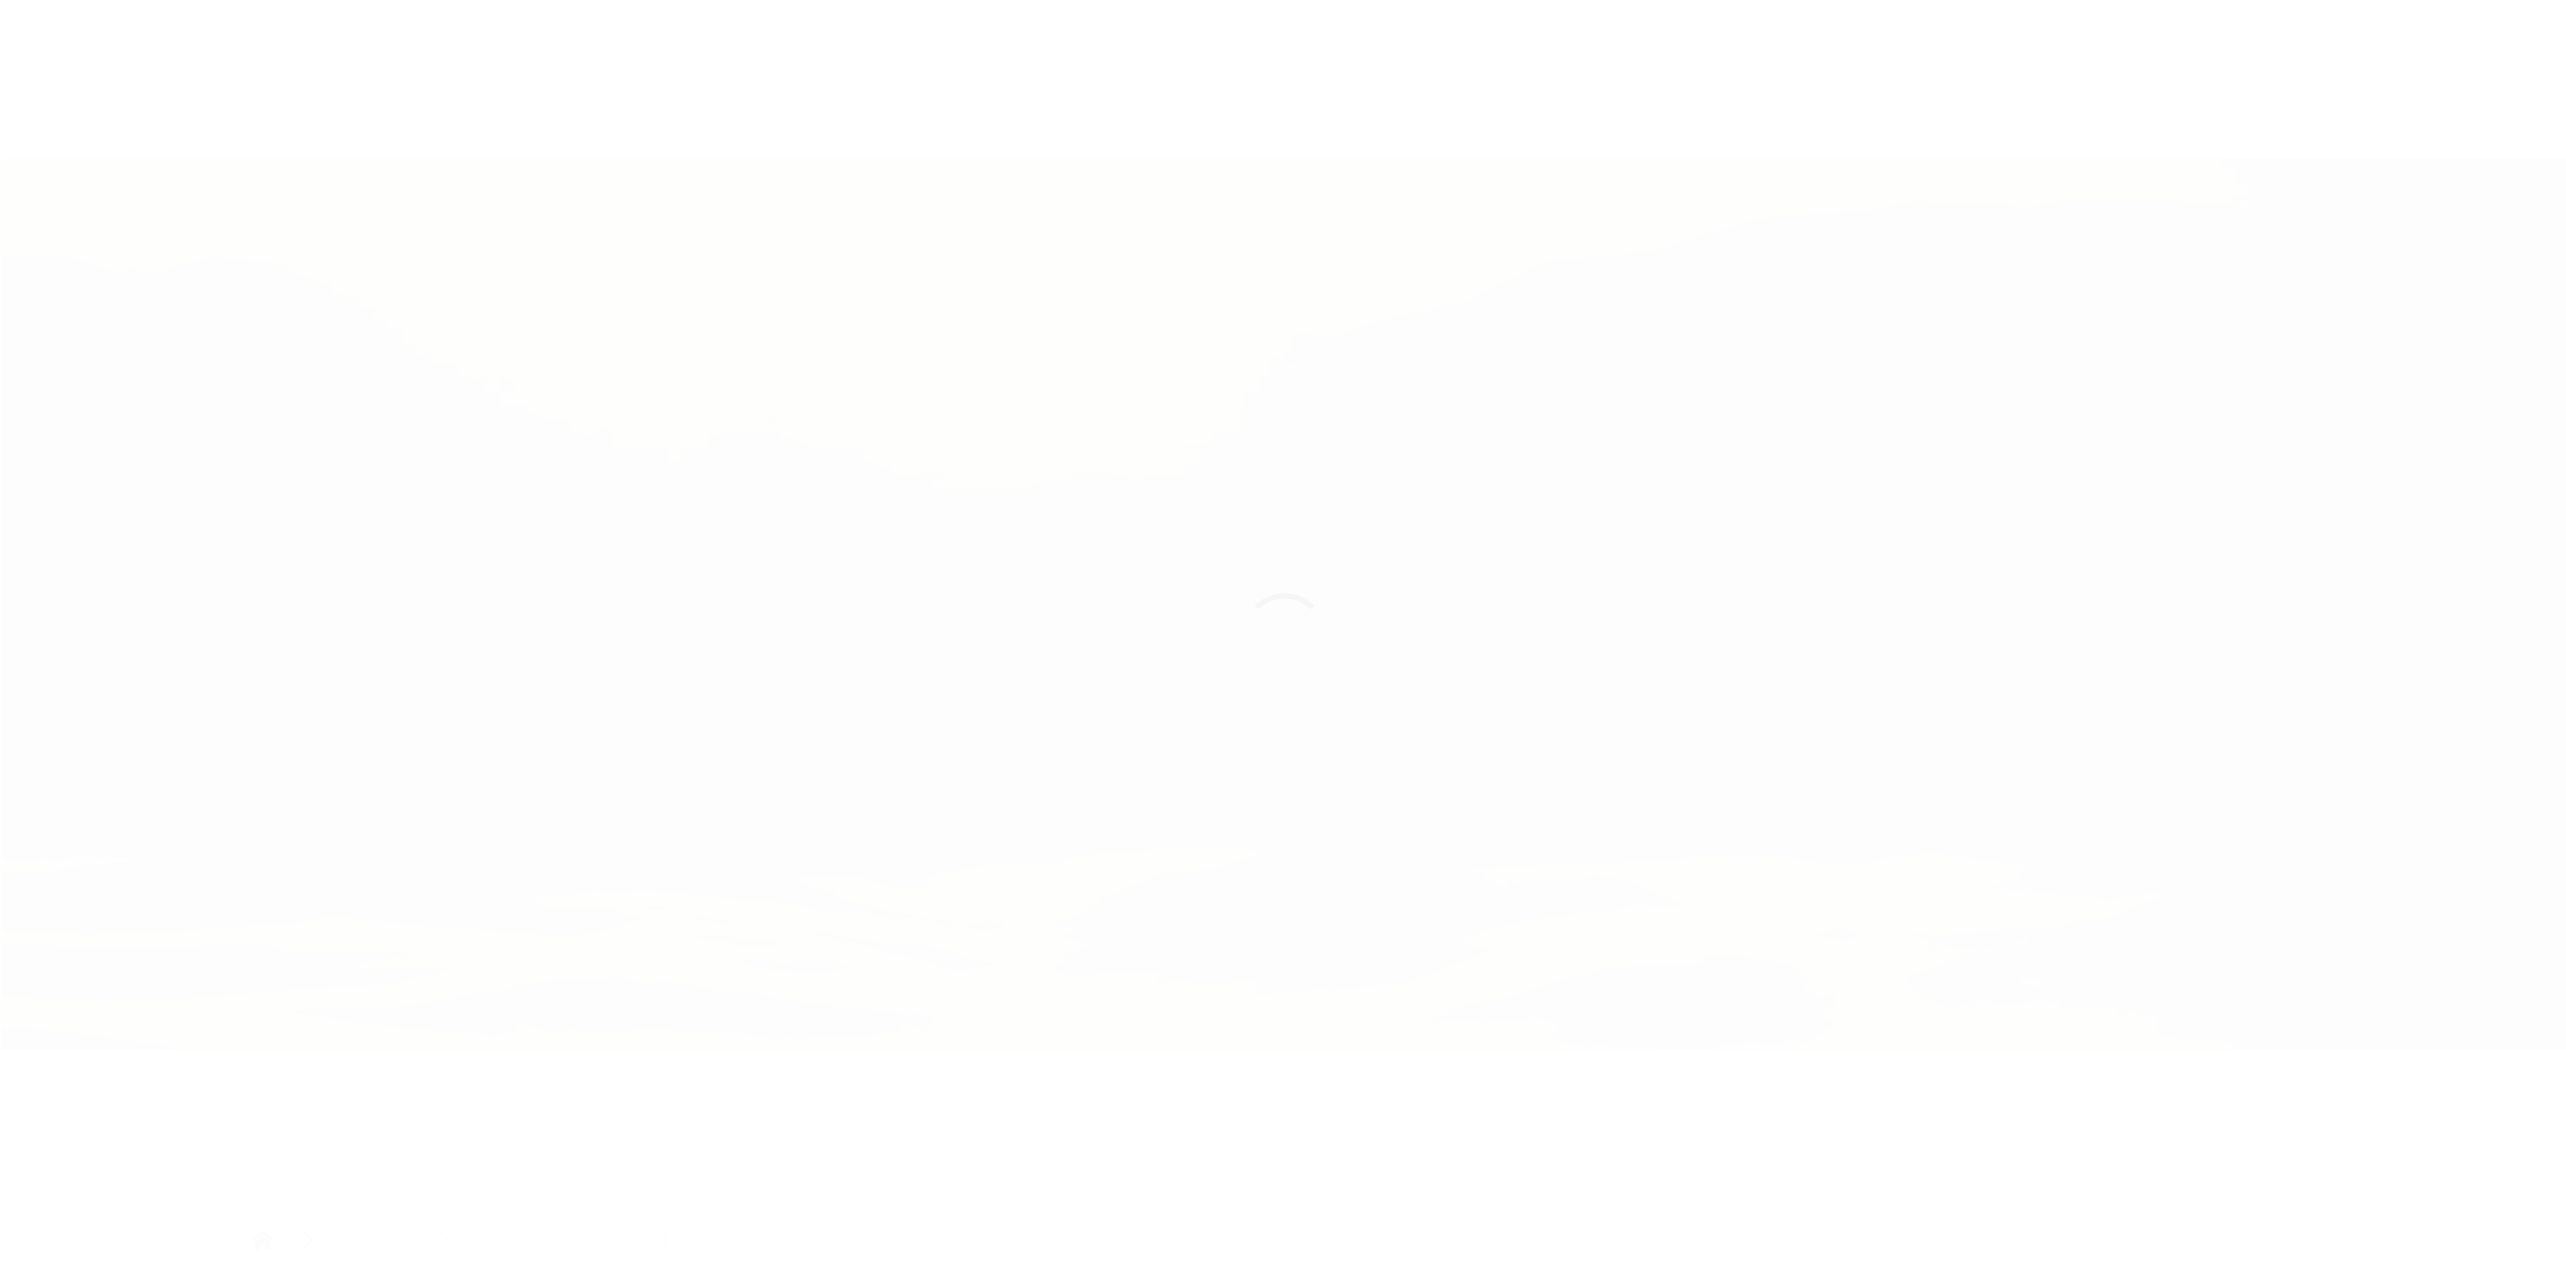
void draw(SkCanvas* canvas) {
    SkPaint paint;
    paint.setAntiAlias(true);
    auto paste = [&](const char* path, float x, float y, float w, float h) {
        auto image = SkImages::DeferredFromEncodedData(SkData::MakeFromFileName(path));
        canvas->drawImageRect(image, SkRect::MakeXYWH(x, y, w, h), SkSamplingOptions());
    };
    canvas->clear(SK_ColorWHITE);
    paste("pic1.png", 1, 158, 2565, 892);
    paste("pic2.png", 252, 1230, 21, 20);
    paste("pic3.png", 304, 1232, 9, 16);
    paste("pic4.png", 439, 1232, 9, 16);
    paste("pic3.png", 661, 1232, 9, 16);
    paint.setStyle(SkPaint::kStroke_Style);
    paint.setStrokeWidth(5.2f);
    paint.setColor(SkColorSetRGB(246, 246, 245));
    canvas->drawPath(SkPathBuilder().moveTo(1256.5f, 607.5f).cubicTo(1272, 592, 1297, 592, 1312.5f, 607.5f).detach(), paint);
}
